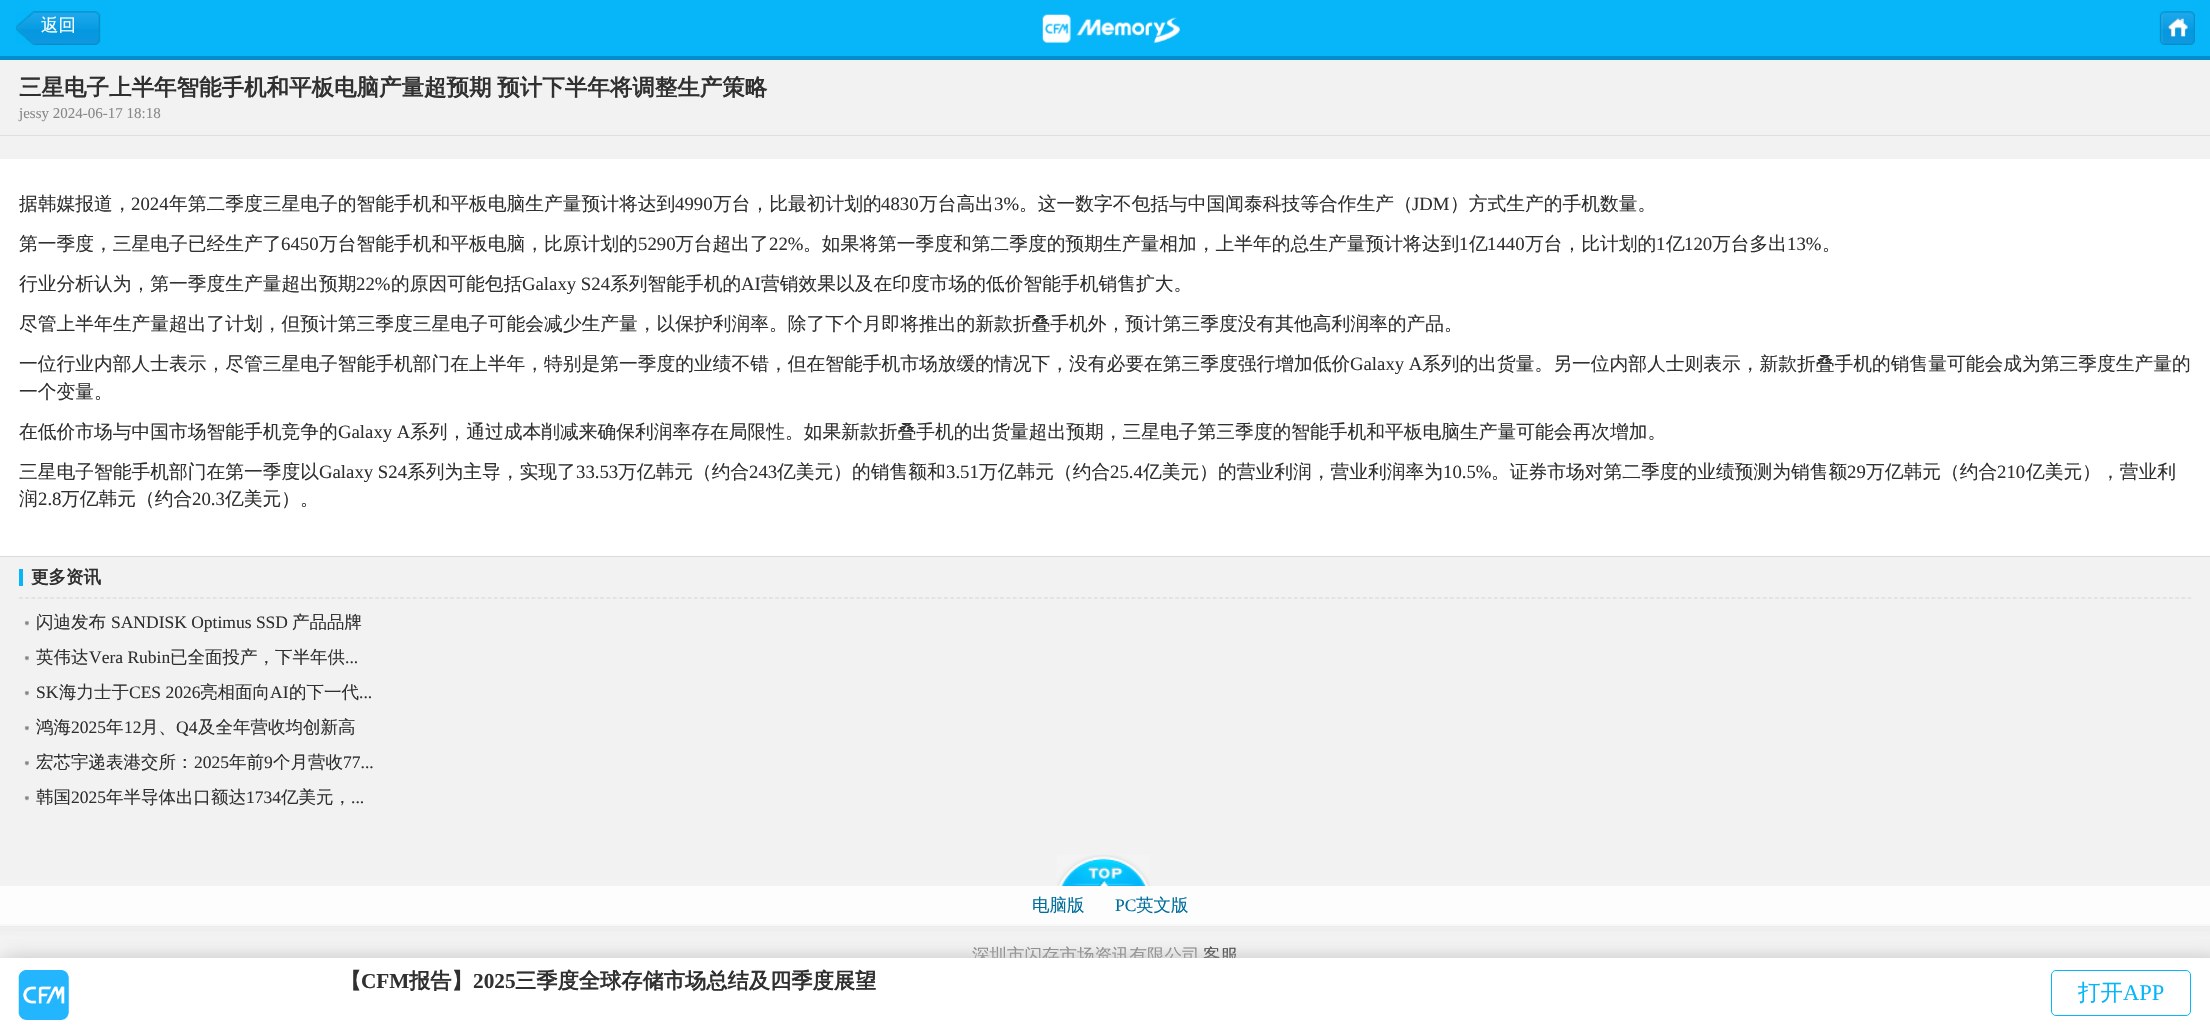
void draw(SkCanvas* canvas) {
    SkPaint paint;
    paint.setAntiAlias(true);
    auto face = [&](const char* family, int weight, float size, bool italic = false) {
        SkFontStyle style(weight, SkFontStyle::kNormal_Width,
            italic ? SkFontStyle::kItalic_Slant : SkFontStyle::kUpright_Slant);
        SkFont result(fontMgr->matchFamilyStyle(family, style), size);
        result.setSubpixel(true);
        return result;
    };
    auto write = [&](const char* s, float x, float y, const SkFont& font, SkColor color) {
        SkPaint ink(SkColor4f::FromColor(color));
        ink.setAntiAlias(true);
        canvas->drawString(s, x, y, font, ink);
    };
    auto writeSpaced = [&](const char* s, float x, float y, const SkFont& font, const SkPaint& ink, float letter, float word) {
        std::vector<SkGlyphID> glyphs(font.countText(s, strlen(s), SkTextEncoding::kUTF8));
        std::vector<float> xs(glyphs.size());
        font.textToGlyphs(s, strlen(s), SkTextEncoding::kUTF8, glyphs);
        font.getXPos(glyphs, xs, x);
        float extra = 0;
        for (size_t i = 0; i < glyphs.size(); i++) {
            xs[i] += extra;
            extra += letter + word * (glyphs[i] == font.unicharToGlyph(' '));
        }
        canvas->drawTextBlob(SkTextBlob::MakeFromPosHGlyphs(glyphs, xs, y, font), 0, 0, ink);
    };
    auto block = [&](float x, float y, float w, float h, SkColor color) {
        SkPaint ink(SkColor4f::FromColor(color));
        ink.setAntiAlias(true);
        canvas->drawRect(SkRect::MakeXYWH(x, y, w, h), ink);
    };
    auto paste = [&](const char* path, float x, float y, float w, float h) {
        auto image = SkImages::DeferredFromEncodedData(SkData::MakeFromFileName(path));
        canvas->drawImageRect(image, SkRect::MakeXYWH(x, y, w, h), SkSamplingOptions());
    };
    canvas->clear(SkColorSetRGB(242, 242, 242));
    block(0, 0, 2210, 56, SkColorSetRGB(6, 182, 249));
    block(0, 56, 2210, 4, SkColorSetRGB(0, 143, 204));
    paste("pic1.png", 16, 11, 85, 34);
    auto kFont1 = face("WenQuanYi Zen Hei", 500, 17.5f);
    write("返回", 41, 31, kFont1, SK_ColorWHITE);
    paste("pic2.png", 2159, 11, 36, 34);
    paste("pic3.png", 1042, 14, 138, 29);
    block(0, 135, 2210, 1, SkColorSetRGB(223, 223, 223));
    auto kFont2 = face("WenQuanYi Zen Hei", 700, 22.5f);
    paint.setColor(SkColorSetRGB(48, 48, 48));
    writeSpaced("三星电子上半年智能手机和平板电脑产量超预期 预计下半年将调整生产策略", 19, 95, kFont2, paint, 0, -1);
    auto kFont3 = face("Liberation Serif", 400, 15);
    write("jessy 2024-06-17 18:18", 19, 118, kFont3, SkColorSetRGB(136, 136, 136));
    block(0, 159, 2210, 397, SK_ColorWHITE);
    auto kFont4 = face("WenQuanYi Zen Hei", 500, 18.75f);
    write("据韩媒报道，", 19, 210, kFont4, SkColorSetRGB(48, 48, 48));
    auto kFont5 = face("Liberation Serif", 400, 18.75f);
    write("2024", 131, 210, kFont5, SkColorSetRGB(48, 48, 48));
    write("年第二季度三星电子的智能手机和平板电脑生产量预计将达到", 169, 210, kFont4, SkColorSetRGB(48, 48, 48));
    write("4990", 675, 210, kFont5, SkColorSetRGB(48, 48, 48));
    write("万台，比最初计划的", 713, 210, kFont4, SkColorSetRGB(48, 48, 48));
    write("4830", 881, 210, kFont5, SkColorSetRGB(48, 48, 48));
    write("万台高出", 919, 210, kFont4, SkColorSetRGB(48, 48, 48));
    write("3%", 994, 210, kFont5, SkColorSetRGB(48, 48, 48));
    write("。这一数字不包括与中国闻泰科技等合作生产（", 1019, 210, kFont4, SkColorSetRGB(48, 48, 48));
    write("JDM", 1412, 210, kFont5, SkColorSetRGB(48, 48, 48));
    write("）方式生产的手机数量。", 1450, 210, kFont4, SkColorSetRGB(48, 48, 48));
    write("第一季度，三星电子已经生产了", 19, 250, kFont4, SkColorSetRGB(48, 48, 48));
    write("6450", 281, 250, kFont5, SkColorSetRGB(48, 48, 48));
    write("万台智能手机和平板电脑，比原计划的", 319, 250, kFont4, SkColorSetRGB(48, 48, 48));
    write("5290", 638, 250, kFont5, SkColorSetRGB(48, 48, 48));
    write("万台超出了", 675, 250, kFont4, SkColorSetRGB(48, 48, 48));
    write("22%", 769, 250, kFont5, SkColorSetRGB(48, 48, 48));
    write("。如果将第一季度和第二季度的预期生产量相加，上半年的总生产量预计将达到", 803, 250, kFont4, SkColorSetRGB(48, 48, 48));
    write("1", 1459, 250, kFont5, SkColorSetRGB(48, 48, 48));
    write("亿", 1469, 250, kFont4, SkColorSetRGB(48, 48, 48));
    write("1440", 1487, 250, kFont5, SkColorSetRGB(48, 48, 48));
    write("万台，比计划的", 1525, 250, kFont4, SkColorSetRGB(48, 48, 48));
    write("1", 1656, 250, kFont5, SkColorSetRGB(48, 48, 48));
    write("亿", 1666, 250, kFont4, SkColorSetRGB(48, 48, 48));
    write("120", 1684, 250, kFont5, SkColorSetRGB(48, 48, 48));
    write("万台多出", 1712, 250, kFont4, SkColorSetRGB(48, 48, 48));
    write("13%", 1787, 250, kFont5, SkColorSetRGB(48, 48, 48));
    write("。", 1822, 250, kFont4, SkColorSetRGB(48, 48, 48));
    write("行业分析认为，第一季度生产量超出预期", 19, 290, kFont4, SkColorSetRGB(48, 48, 48));
    write("22%", 356, 290, kFont5, SkColorSetRGB(48, 48, 48));
    write("的原因可能包括", 391, 290, kFont4, SkColorSetRGB(48, 48, 48));
    write("Galaxy S24", 522, 290, kFont5, SkColorSetRGB(48, 48, 48));
    write("系列智能手机的", 610, 290, kFont4, SkColorSetRGB(48, 48, 48));
    write("AI", 741, 290, kFont5, SkColorSetRGB(48, 48, 48));
    write("营销效果以及在印度市场的低价智能手机销售扩大。", 761, 290, kFont4, SkColorSetRGB(48, 48, 48));
    write("尽管上半年生产量超出了计划，但预计第三季度三星电子可能会减少生产量，以保护利润率。除了下个月即将推出的新款折叠手机外，预计第三季度没有其他高利润率的产品。", 19, 330, kFont4, SkColorSetRGB(48, 48, 48));
    write("一位行业内部人士表示，尽管三星电子智能手机部门在上半年，特别是第一季度的业绩不错，但在智能手机市场放缓的情况下，没有必要在第三季度强行增加低价", 19, 370, kFont4, SkColorSetRGB(48, 48, 48));
    write("Galaxy A", 1350, 370, kFont5, SkColorSetRGB(48, 48, 48));
    write("系列的出货量。另一位内部人士则表示，新款折叠手机的销售量可能会成为第三季度生产量的", 1422, 370, kFont4, SkColorSetRGB(48, 48, 48));
    write("一个变量。", 19, 398, kFont4, SkColorSetRGB(48, 48, 48));
    write("在低价市场与中国市场智能手机竞争的", 19, 438, kFont4, SkColorSetRGB(48, 48, 48));
    write("Galaxy A", 338, 438, kFont5, SkColorSetRGB(48, 48, 48));
    write("系列，通过成本削减来确保利润率存在局限性。如果新款折叠手机的出货量超出预期，三星电子第三季度的智能手机和平板电脑生产量可能会再次增加。", 410, 438, kFont4, SkColorSetRGB(48, 48, 48));
    write("三星电子智能手机部门在第一季度以", 19, 478, kFont4, SkColorSetRGB(48, 48, 48));
    write("Galaxy S24", 319, 478, kFont5, SkColorSetRGB(48, 48, 48));
    write("系列为主导，实现了", 407, 478, kFont4, SkColorSetRGB(48, 48, 48));
    write("33.53", 576, 478, kFont5, SkColorSetRGB(48, 48, 48));
    write("万亿韩元（约合", 618, 478, kFont4, SkColorSetRGB(48, 48, 48));
    write("243", 749, 478, kFont5, SkColorSetRGB(48, 48, 48));
    write("亿美元）的销售额和", 777, 478, kFont4, SkColorSetRGB(48, 48, 48));
    write("3.51", 946, 478, kFont5, SkColorSetRGB(48, 48, 48));
    write("万亿韩元（约合", 979, 478, kFont4, SkColorSetRGB(48, 48, 48));
    write("25.4", 1110, 478, kFont5, SkColorSetRGB(48, 48, 48));
    write("亿美元）的营业利润，营业利润率为", 1143, 478, kFont4, SkColorSetRGB(48, 48, 48));
    write("10.5%", 1443, 478, kFont5, SkColorSetRGB(48, 48, 48));
    write("。证券市场对第二季度的业绩预测为销售额", 1491, 478, kFont4, SkColorSetRGB(48, 48, 48));
    write("29", 1847, 478, kFont5, SkColorSetRGB(48, 48, 48));
    write("万亿韩元（约合", 1866, 478, kFont4, SkColorSetRGB(48, 48, 48));
    write("210", 1997, 478, kFont5, SkColorSetRGB(48, 48, 48));
    write("亿美元），营业利", 2026, 478, kFont4, SkColorSetRGB(48, 48, 48));
    write("润", 19, 505, kFont4, SkColorSetRGB(48, 48, 48));
    write("2.8", 38, 505, kFont5, SkColorSetRGB(48, 48, 48));
    write("万亿韩元（约合", 61, 505, kFont4, SkColorSetRGB(48, 48, 48));
    write("20.3", 192, 505, kFont5, SkColorSetRGB(48, 48, 48));
    write("亿美元）。", 225, 505, kFont4, SkColorSetRGB(48, 48, 48));
    block(0, 556, 2210, 1, SkColorSetRGB(219, 219, 219));
    paint.setStyle(SkPaint::kStroke_Style);
    paint.setStrokeWidth(1.2f);
    paint.setColor(SkColorSetRGB(215, 210, 210));
    paint.setPathEffect(SkDashPathEffect::Make({{3.75f, 2.5f}}, 0));
    canvas->drawPath(SkPathBuilder().moveTo(19, 598).lineTo(2191, 598).detach(), paint);
    paint.setPathEffect(nullptr);
    block(19, 569, 4, 17, SkColorSetRGB(6, 182, 249));
    auto kFont6 = face("WenQuanYi Zen Hei", 700, 17.5f);
    write("更多资讯", 31, 583, kFont6, SkColorSetRGB(48, 48, 48));
    paste("pic4.png", 24, 621, 5, 5);
    write("闪迪发布", 36, 628, kFont1, SkColorSetRGB(48, 48, 48));
    auto kFont7 = face("Liberation Serif", 400, 17.5f);
    write("SANDISK Optimus SSD", 111, 628, kFont7, SkColorSetRGB(48, 48, 48));
    write("产品品牌", 292, 628, kFont1, SkColorSetRGB(48, 48, 48));
    paste("pic4.png", 24, 656, 5, 5);
    write("英伟达", 36, 663, kFont1, SkColorSetRGB(48, 48, 48));
    write("Vera Rubin", 89, 663, kFont7, SkColorSetRGB(48, 48, 48));
    write("已全面投产，下半年供", 170, 663, kFont1, SkColorSetRGB(48, 48, 48));
    write("...", 345, 663, kFont7, SkColorSetRGB(48, 48, 48));
    paste("pic4.png", 24, 691, 5, 5);
    write("SK", 36, 698, kFont7, SkColorSetRGB(48, 48, 48));
    write("海力士于", 59, 698, kFont1, SkColorSetRGB(48, 48, 48));
    write("CES 2026", 129, 698, kFont7, SkColorSetRGB(48, 48, 48));
    write("亮相面向", 200, 698, kFont1, SkColorSetRGB(48, 48, 48));
    write("AI", 270, 698, kFont7, SkColorSetRGB(48, 48, 48));
    write("的下一代", 289, 698, kFont1, SkColorSetRGB(48, 48, 48));
    write("...", 359, 698, kFont7, SkColorSetRGB(48, 48, 48));
    paste("pic4.png", 24, 726, 5, 5);
    write("鸿海", 36, 733, kFont1, SkColorSetRGB(48, 48, 48));
    write("2025", 71, 733, kFont7, SkColorSetRGB(48, 48, 48));
    write("年", 106, 733, kFont1, SkColorSetRGB(48, 48, 48));
    write("12", 124, 733, kFont7, SkColorSetRGB(48, 48, 48));
    write("月、", 141, 733, kFont1, SkColorSetRGB(48, 48, 48));
    write("Q4", 176, 733, kFont7, SkColorSetRGB(48, 48, 48));
    write("及全年营收均创新高", 198, 733, kFont1, SkColorSetRGB(48, 48, 48));
    paste("pic4.png", 24, 761, 5, 5);
    write("宏芯宇递表港交所：", 36, 768, kFont1, SkColorSetRGB(48, 48, 48));
    write("2025", 194, 768, kFont7, SkColorSetRGB(48, 48, 48));
    write("年前", 229, 768, kFont1, SkColorSetRGB(48, 48, 48));
    write("9", 264, 768, kFont7, SkColorSetRGB(48, 48, 48));
    write("个月营收", 273, 768, kFont1, SkColorSetRGB(48, 48, 48));
    write("77...", 343, 768, kFont7, SkColorSetRGB(48, 48, 48));
    paste("pic5.png", 24, 796, 5, 5);
    write("韩国", 36, 803, kFont1, SkColorSetRGB(48, 48, 48));
    write("2025", 71, 803, kFont7, SkColorSetRGB(48, 48, 48));
    write("年半导体出口额达", 106, 803, kFont1, SkColorSetRGB(48, 48, 48));
    write("1734", 246, 803, kFont7, SkColorSetRGB(48, 48, 48));
    write("亿美元，", 281, 803, kFont1, SkColorSetRGB(48, 48, 48));
    write("...", 351, 803, kFont7, SkColorSetRGB(48, 48, 48));
    paste("pic6.png", 1057, 855, 93, 31);
    block(0, 886, 2210, 38, SkColorSetRGB(253, 253, 253));
    paste("pic7.png", 0, 924, 2210, 34);
    write("电脑版", 1032, 911, kFont1, SkColorSetRGB(0, 110, 156));
    write("PC", 1115, 911, kFont7, SkColorSetRGB(0, 110, 156));
    write("英文版", 1136, 911, kFont1, SkColorSetRGB(0, 110, 156));
    block(0, 926, 2210, 1, SkColorSetRGB(235, 235, 235));
    write("深圳市闪存市场资讯有限公司", 972, 961, kFont1, SkColorSetRGB(129, 129, 129));
    write("客服", 1203, 961, kFont1, SkColorSetRGB(48, 48, 48));
    paint.setStyle(SkPaint::kFill_Style);
    paint.setColor(SkColorSetRGB(191, 191, 191));
    paint.setMaskFilter(SkMaskFilter::MakeBlur(kNormal_SkBlurStyle, 12.5f));
    canvas->drawRect(SkRect::MakeXYWH(0, 958, 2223, 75), paint);
    paint.setMaskFilter(nullptr);
    block(0, 958, 2210, 74, SK_ColorWHITE);
    paste("pic8.png", 18, 970, 51, 50);
    auto kFont8 = face("WenQuanYi Zen Hei", 700, 21.25f);
    write("【", 340, 988, kFont8, SkColorSetRGB(48, 48, 48));
    auto kFont9 = face("Liberation Serif", 700, 21.25f);
    write("CFM", 361, 988, kFont9, SkColorSetRGB(48, 48, 48));
    write("报告】", 409, 988, kFont8, SkColorSetRGB(48, 48, 48));
    write("2025", 473, 988, kFont9, SkColorSetRGB(48, 48, 48));
    write("三季度全球存储市场总结及四季度展望", 515, 988, kFont8, SkColorSetRGB(48, 48, 48));
    paint.setStyle(SkPaint::kStroke_Style);
    paint.setStrokeWidth(1);
    paint.setColor(SkColorSetRGB(6, 182, 249));
    canvas->drawRoundRect(SkRect::MakeXYWH(2051.5f, 970.5f, 139, 45), 4.5f, 4.5f, paint);
    auto kFont10 = face("WenQuanYi Zen Hei", 500, 22.5f);
    write("打开", 2078, 1000, kFont10, SkColorSetRGB(6, 182, 249));
    auto kFont11 = face("Liberation Serif", 400, 22.5f);
    write("APP", 2123, 1000, kFont11, SkColorSetRGB(6, 182, 249));
}
